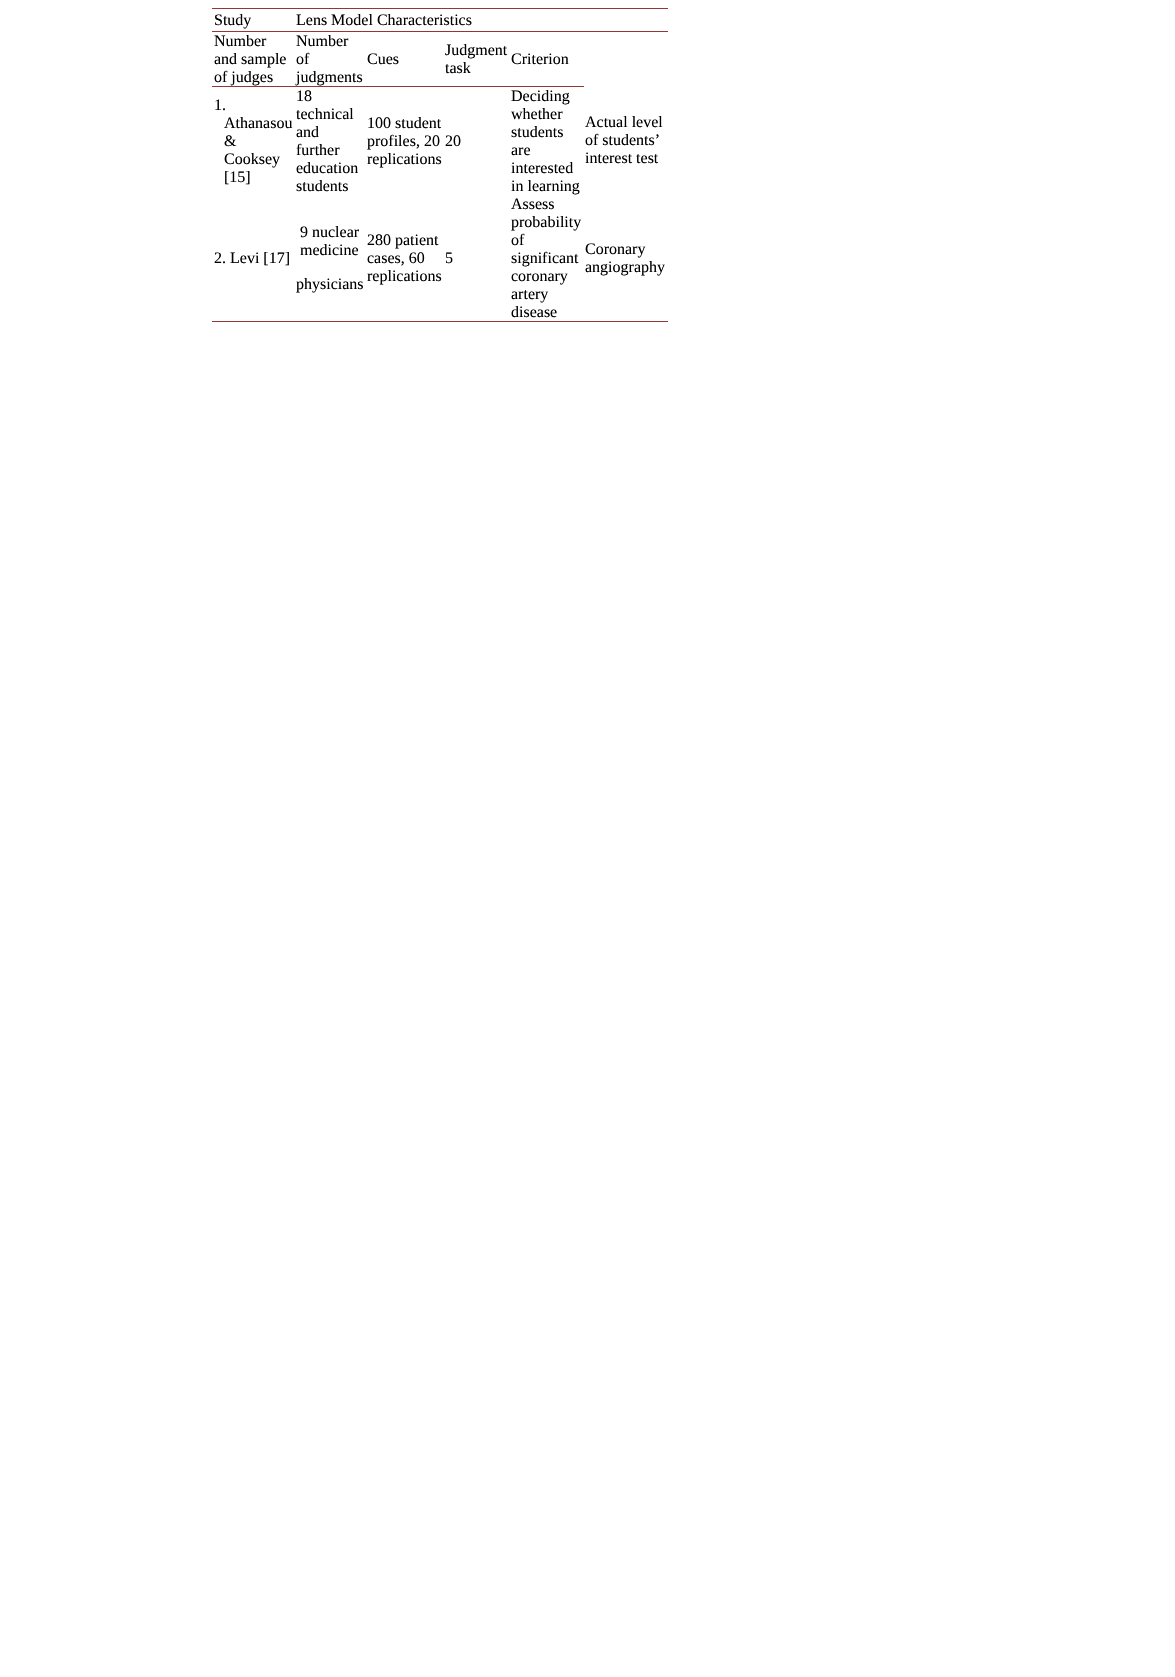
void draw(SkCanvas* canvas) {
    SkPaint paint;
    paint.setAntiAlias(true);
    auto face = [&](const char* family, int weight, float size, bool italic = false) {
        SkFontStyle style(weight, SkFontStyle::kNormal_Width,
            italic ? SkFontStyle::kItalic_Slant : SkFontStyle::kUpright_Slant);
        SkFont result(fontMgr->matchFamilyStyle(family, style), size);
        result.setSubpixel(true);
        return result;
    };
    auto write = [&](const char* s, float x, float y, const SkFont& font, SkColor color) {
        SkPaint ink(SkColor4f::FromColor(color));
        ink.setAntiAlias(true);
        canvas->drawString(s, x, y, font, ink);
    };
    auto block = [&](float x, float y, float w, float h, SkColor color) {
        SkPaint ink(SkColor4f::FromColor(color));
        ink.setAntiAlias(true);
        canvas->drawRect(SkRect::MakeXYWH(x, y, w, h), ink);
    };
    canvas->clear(SK_ColorWHITE);
    auto kFont1 = face("Liberation Serif", 400, 16);
    write("Study", 214, 25, kFont1, SK_ColorBLACK);
    block(212, 8, 456, 1, SkColorSetRGB(148, 54, 52));
    block(212, 31, 456, 1, SkColorSetRGB(148, 54, 52));
    write("Lens Model Characteristics", 296, 25, kFont1, SK_ColorBLACK);
    write("Number", 214, 46, kFont1, SK_ColorBLACK);
    write("and sample", 214, 64, kFont1, SK_ColorBLACK);
    write("of judges", 214, 82, kFont1, SK_ColorBLACK);
    write("Number", 296, 46, kFont1, SK_ColorBLACK);
    write("of", 296, 64, kFont1, SK_ColorBLACK);
    write("judgments", 296, 82, kFont1, SK_ColorBLACK);
    write("Cues", 367, 64, kFont1, SK_ColorBLACK);
    write("Judgment", 445, 55, kFont1, SK_ColorBLACK);
    write("task", 445, 73, kFont1, SK_ColorBLACK);
    block(212, 86, 372, 1, SkColorSetRGB(148, 54, 52));
    write("Criterion", 511, 64, kFont1, SK_ColorBLACK);
    write("1.", 214, 110, kFont1, SK_ColorBLACK);
    write("Athanasou", 224, 128, kFont1, SK_ColorBLACK);
    write("&", 224, 146, kFont1, SK_ColorBLACK);
    write("Cooksey", 224, 164, kFont1, SK_ColorBLACK);
    write("[15]", 224, 182, kFont1, SK_ColorBLACK);
    write("18", 296, 101, kFont1, SK_ColorBLACK);
    write("technical", 296, 119, kFont1, SK_ColorBLACK);
    write("and", 296, 137, kFont1, SK_ColorBLACK);
    write("further", 296, 155, kFont1, SK_ColorBLACK);
    write("education", 296, 173, kFont1, SK_ColorBLACK);
    write("students", 296, 191, kFont1, SK_ColorBLACK);
    write("100 student", 367, 128, kFont1, SK_ColorBLACK);
    write("profiles, 20", 367, 146, kFont1, SK_ColorBLACK);
    write("replications", 367, 164, kFont1, SK_ColorBLACK);
    write("20", 445, 146, kFont1, SK_ColorBLACK);
    write("Deciding", 511, 101, kFont1, SK_ColorBLACK);
    write("whether", 511, 119, kFont1, SK_ColorBLACK);
    write("students", 511, 137, kFont1, SK_ColorBLACK);
    write("are", 511, 155, kFont1, SK_ColorBLACK);
    write("interested", 511, 173, kFont1, SK_ColorBLACK);
    write("in learning", 511, 191, kFont1, SK_ColorBLACK);
    write("Actual level", 585, 127, kFont1, SK_ColorBLACK);
    write("of students’", 585, 145, kFont1, SK_ColorBLACK);
    write("interest test", 585, 163, kFont1, SK_ColorBLACK);
    write("2. Levi [17]", 214, 263, kFont1, SK_ColorBLACK);
    write("9 nuclear", 300, 237, kFont1, SK_ColorBLACK);
    write("medicine", 300, 255, kFont1, SK_ColorBLACK);
    write("physicians", 296, 289, kFont1, SK_ColorBLACK);
    write("280 patient", 367, 245, kFont1, SK_ColorBLACK);
    write("cases, 60", 367, 263, kFont1, SK_ColorBLACK);
    write("replications", 367, 281, kFont1, SK_ColorBLACK);
    write("5", 445, 263, kFont1, SK_ColorBLACK);
    write("Assess", 511, 209, kFont1, SK_ColorBLACK);
    write("probability", 511, 227, kFont1, SK_ColorBLACK);
    write("of", 511, 245, kFont1, SK_ColorBLACK);
    write("significant", 511, 263, kFont1, SK_ColorBLACK);
    write("coronary", 511, 281, kFont1, SK_ColorBLACK);
    write("artery", 511, 299, kFont1, SK_ColorBLACK);
    write("disease", 511, 317, kFont1, SK_ColorBLACK);
    block(212, 321, 456, 1, SkColorSetRGB(148, 54, 52));
    write("Coronary", 585, 254, kFont1, SK_ColorBLACK);
    write("angiography", 585, 272, kFont1, SK_ColorBLACK);
}
